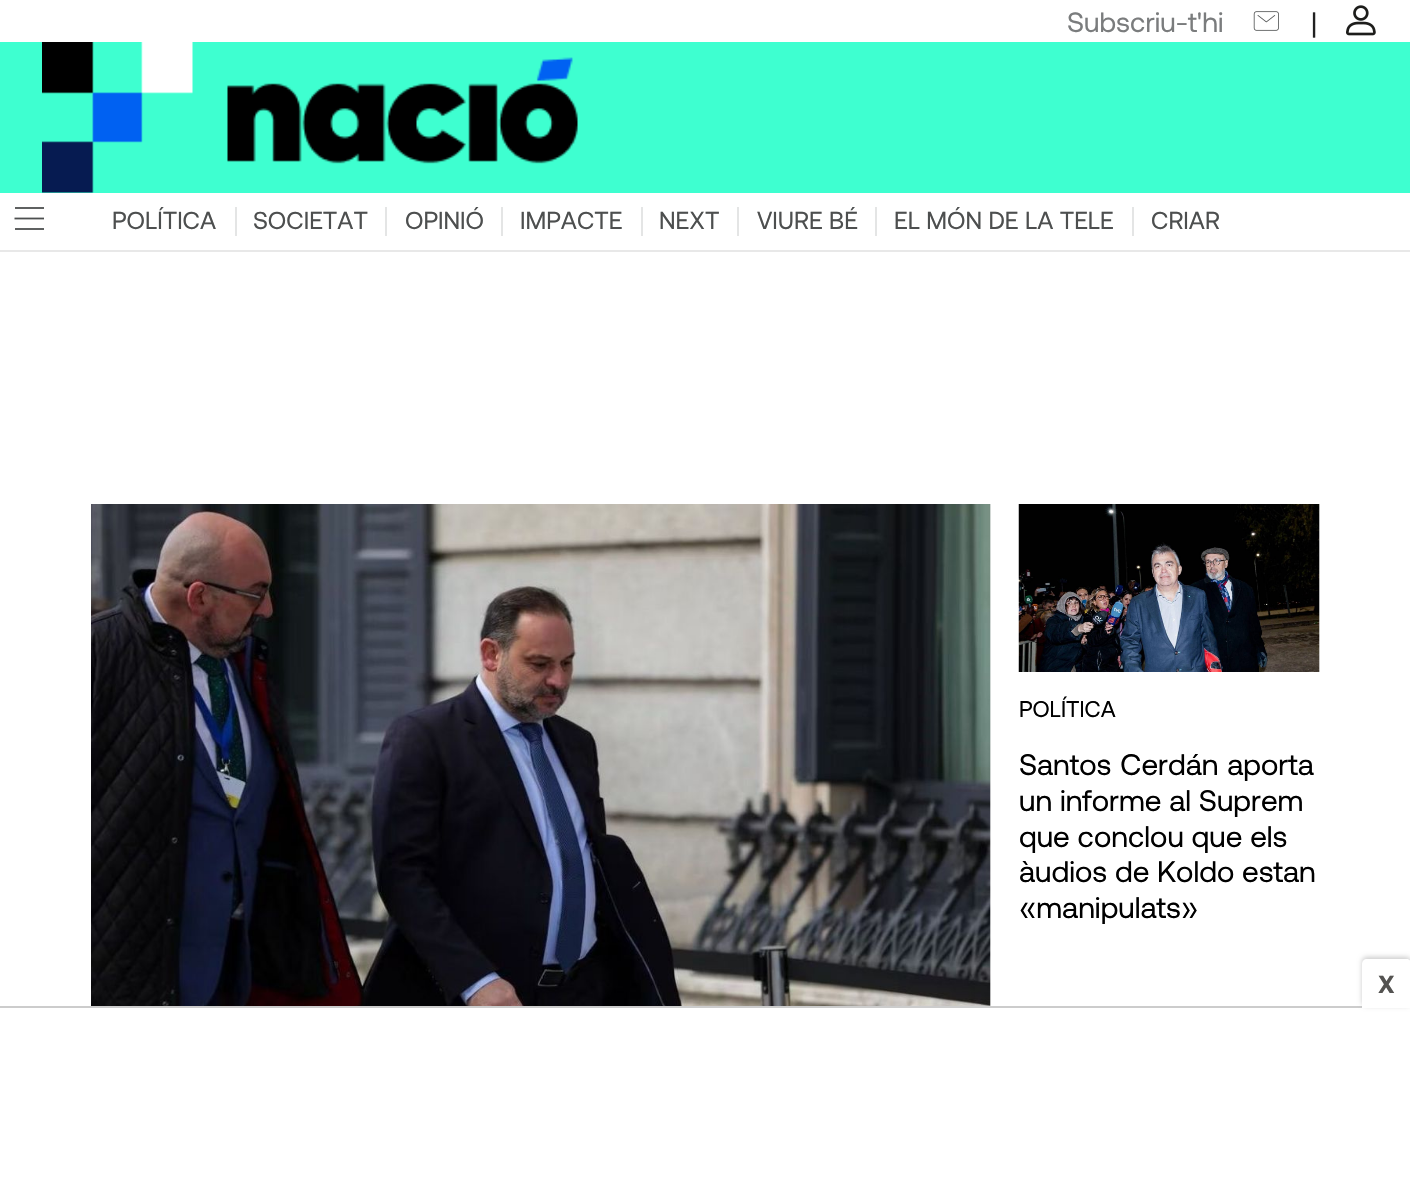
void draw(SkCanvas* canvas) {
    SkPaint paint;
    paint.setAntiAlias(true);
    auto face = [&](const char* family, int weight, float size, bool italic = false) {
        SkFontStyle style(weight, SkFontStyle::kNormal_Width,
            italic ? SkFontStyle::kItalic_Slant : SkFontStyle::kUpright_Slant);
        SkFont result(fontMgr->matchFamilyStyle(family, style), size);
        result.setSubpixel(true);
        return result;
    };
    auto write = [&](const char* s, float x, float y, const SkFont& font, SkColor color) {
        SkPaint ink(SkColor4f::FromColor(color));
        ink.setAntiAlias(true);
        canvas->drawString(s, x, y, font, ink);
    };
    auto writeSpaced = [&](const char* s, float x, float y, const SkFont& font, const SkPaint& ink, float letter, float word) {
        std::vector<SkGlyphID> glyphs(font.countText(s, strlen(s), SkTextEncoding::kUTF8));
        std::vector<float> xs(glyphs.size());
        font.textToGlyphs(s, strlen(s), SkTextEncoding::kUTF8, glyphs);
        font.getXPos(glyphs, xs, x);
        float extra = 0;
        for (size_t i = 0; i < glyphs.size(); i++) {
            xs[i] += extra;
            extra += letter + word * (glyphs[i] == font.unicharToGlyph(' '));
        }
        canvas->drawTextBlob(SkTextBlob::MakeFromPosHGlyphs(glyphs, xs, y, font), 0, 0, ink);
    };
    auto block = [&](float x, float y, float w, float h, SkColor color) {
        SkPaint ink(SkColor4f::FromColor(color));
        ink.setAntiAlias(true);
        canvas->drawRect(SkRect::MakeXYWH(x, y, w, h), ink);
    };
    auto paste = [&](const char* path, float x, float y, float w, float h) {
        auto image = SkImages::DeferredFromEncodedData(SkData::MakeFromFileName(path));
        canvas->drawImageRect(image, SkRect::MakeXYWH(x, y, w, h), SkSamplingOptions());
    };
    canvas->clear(SK_ColorWHITE);
    block(0, 250, 1410, 2, SkColorSetRGB(232, 232, 232));
    auto kFont1 = face("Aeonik", 400, 28);
    write("Subscriu-t'hi", 1067, 32, kFont1, SkColorSetRGB(122, 124, 125));
    paste("pic1.png", 1253, 11, 26, 20);
    write("|", 1311, 32, kFont1, SkColorSetRGB(33, 33, 33));
    paste("pic2.png", 1346, 5, 30, 31);
    block(0, 42, 1410, 151, SkColorSetRGB(62, 255, 208));
    paste("pic3.png", 42, 42, 536, 151);
    block(15, 207, 29, 2, SkColorSetRGB(95, 97, 97));
    paint.setStyle(SkPaint::kStroke_Style);
    paint.setStrokeWidth(1.8f);
    paint.setColor(SkColorSetRGB(77, 79, 79));
    canvas->drawPath(SkPathBuilder().moveTo(14.5f, 218.5f).lineTo(44, 218.5f).detach(), paint);
    block(15, 228, 29, 2, SkColorSetRGB(95, 97, 97));
    block(235, 207, 2, 29, SkColorSetRGB(228, 229, 229));
    auto kFont2 = face("Aeonik", 400, 24.5f);
    write("POLÍTICA", 112, 229, kFont2, SkColorSetRGB(77, 79, 79));
    block(385, 207, 2, 29, SkColorSetRGB(228, 229, 229));
    write("SOCIETAT", 253, 229, kFont2, SkColorSetRGB(77, 79, 79));
    block(501, 207, 2, 29, SkColorSetRGB(228, 229, 229));
    write("OPINIÓ", 405, 229, kFont2, SkColorSetRGB(77, 79, 79));
    block(641, 207, 2, 29, SkColorSetRGB(228, 229, 229));
    write("IMPACTE", 520, 229, kFont2, SkColorSetRGB(77, 79, 79));
    block(737, 207, 2, 29, SkColorSetRGB(228, 229, 229));
    write("NEXT", 659, 229, kFont2, SkColorSetRGB(77, 79, 79));
    block(875, 207, 2, 29, SkColorSetRGB(228, 229, 229));
    write("VIURE BÉ", 757, 229, kFont2, SkColorSetRGB(77, 79, 79));
    block(1132, 207, 2, 29, SkColorSetRGB(228, 229, 229));
    write("EL MÓN DE LA TELE", 894, 229, kFont2, SkColorSetRGB(77, 79, 79));
    write("CRIAR", 1151, 229, kFont2, SkColorSetRGB(77, 79, 79));
    block(990, 504, 1, 502, SkColorSetRGB(240, 240, 240));
    paste("pic4.png", 91, 504, 900, 502);
    block(1319, 504, 1, 168, SkColorSetRGB(240, 240, 240));
    paste("pic5.png", 1018, 504, 302, 168);
    auto kFont3 = face("Aeonik", 400, 22.75f);
    write("POLÍTICA", 1019, 717, kFont3, SK_ColorBLACK);
    auto kFont4 = face("Aeonik", 400, 29.75f);
    paint.setStyle(SkPaint::kFill_Style);
    paint.setColor(SK_ColorBLACK);
    writeSpaced("Santos Cerdán aporta", 1019, 775, kFont4, paint, 0, 1);
    write("un informe al Suprem", 1019, 811, kFont4, SK_ColorBLACK);
    write("que conclou que els", 1019, 847, kFont4, SK_ColorBLACK);
    write("àudios de Koldo estan", 1019, 882, kFont4, SK_ColorBLACK);
    write("«manipulats»", 1019, 918, kFont4, SK_ColorBLACK);
    block(0, 1006, 1362, 2, SkColorSetRGB(204, 204, 204));
    paint.setColor(SkColorSetARGB(51, 0, 0, 0));
    paint.setMaskFilter(SkMaskFilter::MakeBlur(kNormal_SkBlurStyle, 2.5f));
    canvas->drawRoundRect(SkRect::MakeXYWH(1362, 957, 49, 49), 5, 5, paint);
    paint.setMaskFilter(nullptr);
    paint.setColor(SK_ColorWHITE);
    canvas->drawPath(SkPathBuilder().moveTo(1367, 959).lineTo(1407, 959).cubicTo(1409, 959, 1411, 961, 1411, 963).lineTo(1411, 1008).lineTo(1362, 1008).lineTo(1362, 964).cubicTo(1362, 961, 1364, 959, 1367, 959).close().detach(), paint);
    auto kFont5 = face("Aeonik", 700, 24.5f);
    write("X", 1378, 993, kFont5, SkColorSetRGB(84, 83, 81));
}
